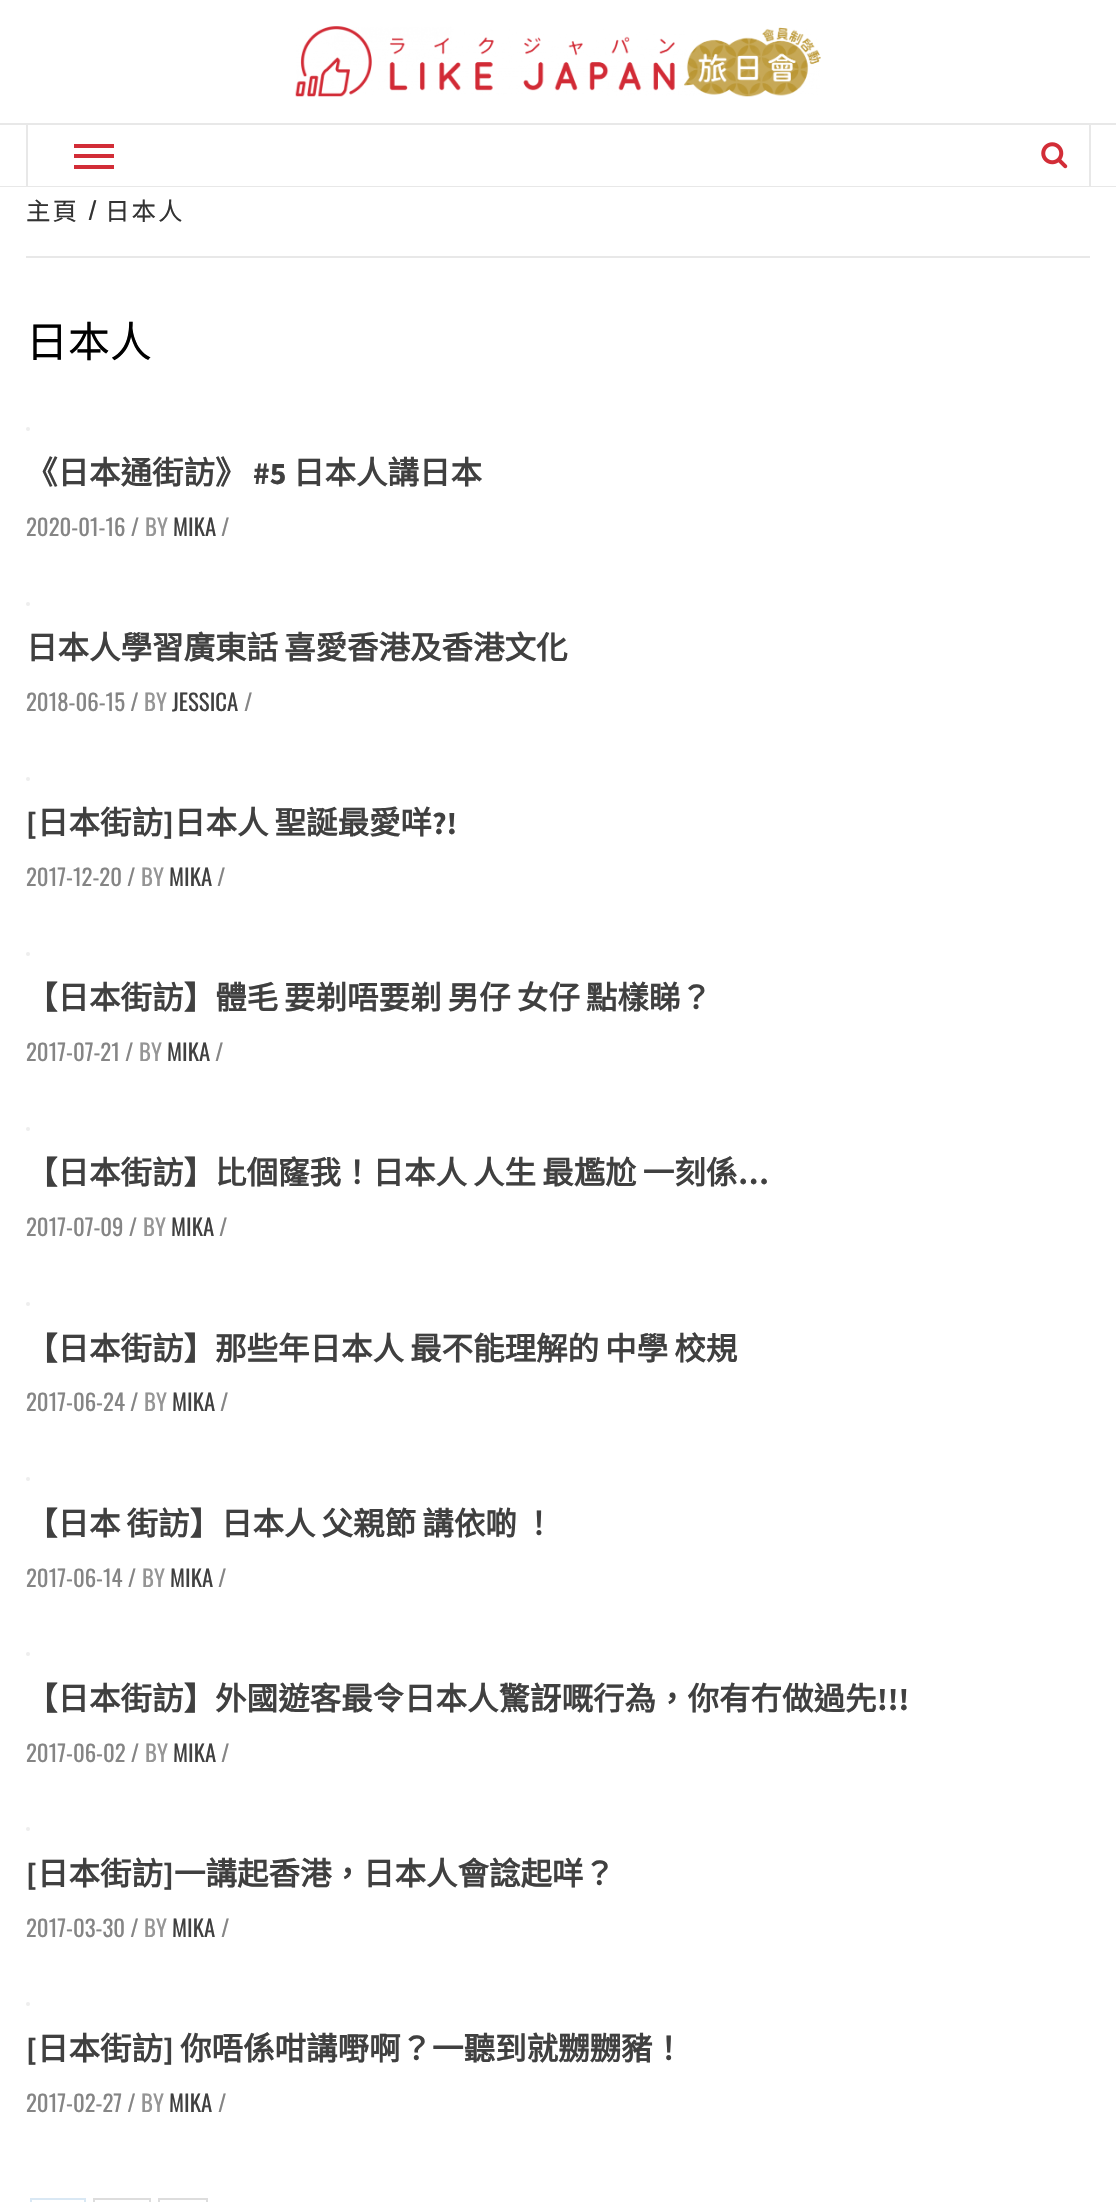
void draw(SkCanvas* canvas) {
    SkPaint paint;
    paint.setAntiAlias(true);
    auto face = [&](const char* family, int weight, float size, bool italic = false) {
        SkFontStyle style(weight, SkFontStyle::kNormal_Width,
            italic ? SkFontStyle::kItalic_Slant : SkFontStyle::kUpright_Slant);
        SkFont result(fontMgr->matchFamilyStyle(family, style), size);
        result.setSubpixel(true);
        return result;
    };
    auto write = [&](const char* s, float x, float y, const SkFont& font, SkColor color) {
        SkPaint ink(SkColor4f::FromColor(color));
        ink.setAntiAlias(true);
        canvas->drawString(s, x, y, font, ink);
    };
    auto writeSpaced = [&](const char* s, float x, float y, const SkFont& font, const SkPaint& ink, float letter, float word) {
        std::vector<SkGlyphID> glyphs(font.countText(s, strlen(s), SkTextEncoding::kUTF8));
        std::vector<float> xs(glyphs.size());
        font.textToGlyphs(s, strlen(s), SkTextEncoding::kUTF8, glyphs);
        font.getXPos(glyphs, xs, x);
        float extra = 0;
        for (size_t i = 0; i < glyphs.size(); i++) {
            xs[i] += extra;
            extra += letter + word * (glyphs[i] == font.unicharToGlyph(' '));
        }
        canvas->drawTextBlob(SkTextBlob::MakeFromPosHGlyphs(glyphs, xs, y, font), 0, 0, ink);
    };
    auto block = [&](float x, float y, float w, float h, SkColor color) {
        SkPaint ink(SkColor4f::FromColor(color));
        ink.setAntiAlias(true);
        canvas->drawRect(SkRect::MakeXYWH(x, y, w, h), ink);
    };
    auto paste = [&](const char* path, float x, float y, float w, float h) {
        auto image = SkImages::DeferredFromEncodedData(SkData::MakeFromFileName(path));
        canvas->drawImageRect(image, SkRect::MakeXYWH(x, y, w, h), SkSamplingOptions());
    };
    canvas->clear(SK_ColorWHITE);
    paste("pic1.png", 295, 26, 526, 71);
    block(0, 123, 1116, 2, SkColorSetRGB(232, 232, 232));
    block(0, 186, 1116, 1, SkColorSetRGB(232, 232, 232));
    block(1089, 124, 2, 62, SkColorSetRGB(232, 232, 232));
    block(26, 124, 2, 62, SkColorSetRGB(232, 232, 232));
    block(74, 154, 40, 4, SkColorSetRGB(210, 45, 55));
    block(74, 144, 40, 4, SkColorSetRGB(210, 45, 55));
    block(74, 165, 40, 4, SkColorSetRGB(210, 45, 55));
    paste("pic2.png", 1041, 142, 27, 27);
    block(26, 256, 1064, 2, SkColorSetRGB(232, 232, 232));
    auto kFont1 = face("Noto Sans CJK HK", 400, 24.5f);
    paint.setColor(SkColorSetRGB(51, 51, 51));
    writeSpaced("主頁", 26, 220, kFont1, paint, 2, 0);
    auto kFont2 = face("Oswald", 400, 24.5f);
    writeSpaced("/", 88, 220, kFont2, paint, 2, 0);
    writeSpaced("日本人", 105, 220, kFont1, paint, 2, 0);
    auto kFont3 = face("Noto Sans CJK HK", 400, 42);
    write("日本人", 26, 357, kFont3, SK_ColorBLACK);
    paint.setColor(SkColorSetRGB(238, 238, 238));
    canvas->drawCircle(28, 429, 2, paint);
    auto kFont4 = face("Noto Sans CJK HK", 700, 31.5f);
    write("《日本通街訪》", 26, 484, kFont4, SkColorSetRGB(64, 64, 64));
    auto kFont5 = face("Source Sans Pro", 700, 31.5f);
    write("#5", 253, 484, kFont5, SkColorSetRGB(64, 64, 64));
    write("日本人講日本", 293, 484, kFont4, SkColorSetRGB(64, 64, 64));
    auto kFont6 = face("Oswald", 400, 22.75f);
    write("2020-01-16 /", 26, 536, kFont6, SkColorSetRGB(133, 133, 133));
    write("BY", 145, 536, kFont6, SkColorSetRGB(149, 149, 149));
    write("MIKA", 173, 536, kFont6, SkColorSetRGB(64, 64, 64));
    write("/", 221, 536, kFont6, SkColorSetRGB(133, 133, 133));
    canvas->drawCircle(28, 604, 2, paint);
    paint.setColor(SkColorSetRGB(64, 64, 64));
    writeSpaced("日本人學習廣東話 喜愛香港及香港文化", 26, 659, kFont4, paint, 0, -1);
    write("2018-06-15 /", 26, 711, kFont6, SkColorSetRGB(133, 133, 133));
    write("BY", 144, 711, kFont6, SkColorSetRGB(149, 149, 149));
    write("JESSICA", 172, 711, kFont6, SkColorSetRGB(64, 64, 64));
    write("/", 244, 711, kFont6, SkColorSetRGB(133, 133, 133));
    paint.setColor(SkColorSetRGB(238, 238, 238));
    canvas->drawCircle(28, 779, 2, paint);
    write("[", 26, 834, kFont5, SkColorSetRGB(64, 64, 64));
    write("日本街訪", 37, 834, kFont4, SkColorSetRGB(64, 64, 64));
    write("]", 163, 834, kFont5, SkColorSetRGB(64, 64, 64));
    paint.setColor(SkColorSetRGB(64, 64, 64));
    writeSpaced("日本人 聖誕最愛咩", 174, 834, kFont4, paint, 0, -1);
    write("?!", 432, 834, kFont5, SkColorSetRGB(64, 64, 64));
    write("2017-12-20 /", 26, 886, kFont6, SkColorSetRGB(133, 133, 133));
    write("BY", 141, 886, kFont6, SkColorSetRGB(149, 149, 149));
    write("MIKA", 169, 886, kFont6, SkColorSetRGB(64, 64, 64));
    write("/", 217, 886, kFont6, SkColorSetRGB(133, 133, 133));
    paint.setColor(SkColorSetRGB(238, 238, 238));
    canvas->drawCircle(28, 954, 2, paint);
    paint.setColor(SkColorSetRGB(64, 64, 64));
    writeSpaced("【日本街訪】體毛 要剃唔要剃 男仔 女仔 點樣睇？", 26, 1009, kFont4, paint, 0, -1);
    write("2017-07-21 /", 26, 1061, kFont6, SkColorSetRGB(133, 133, 133));
    write("BY", 139, 1061, kFont6, SkColorSetRGB(149, 149, 149));
    write("MIKA", 167, 1061, kFont6, SkColorSetRGB(64, 64, 64));
    write("/", 215, 1061, kFont6, SkColorSetRGB(133, 133, 133));
    paint.setColor(SkColorSetRGB(238, 238, 238));
    canvas->drawCircle(28, 1129, 2, paint);
    paint.setColor(SkColorSetRGB(64, 64, 64));
    writeSpaced("【日本街訪】比個窿我！日本人 人生 最尷尬 一刻係", 26, 1184, kFont4, paint, 0, -1);
    write("…", 738, 1184, kFont5, SkColorSetRGB(64, 64, 64));
    write("2017-07-09 /", 26, 1236, kFont6, SkColorSetRGB(133, 133, 133));
    write("BY", 143, 1236, kFont6, SkColorSetRGB(149, 149, 149));
    write("MIKA", 171, 1236, kFont6, SkColorSetRGB(64, 64, 64));
    write("/", 219, 1236, kFont6, SkColorSetRGB(133, 133, 133));
    paint.setColor(SkColorSetRGB(238, 238, 238));
    canvas->drawCircle(28, 1304, 2, paint);
    paint.setColor(SkColorSetRGB(64, 64, 64));
    writeSpaced("【日本街訪】那些年日本人 最不能理解的 中學 校規", 26, 1360, kFont4, paint, 0, -1);
    write("2017-06-24 /", 26, 1411, kFont6, SkColorSetRGB(133, 133, 133));
    write("BY", 144, 1411, kFont6, SkColorSetRGB(149, 149, 149));
    write("MIKA", 172, 1411, kFont6, SkColorSetRGB(64, 64, 64));
    write("/", 220, 1411, kFont6, SkColorSetRGB(133, 133, 133));
    paint.setColor(SkColorSetRGB(238, 238, 238));
    canvas->drawCircle(28, 1479, 2, paint);
    paint.setColor(SkColorSetRGB(64, 64, 64));
    writeSpaced("【日本 街訪】日本人 父親節 講依啲 ！", 26, 1535, kFont4, paint, 0, -1);
    write("2017-06-14 /", 26, 1587, kFont6, SkColorSetRGB(133, 133, 133));
    write("BY", 142, 1587, kFont6, SkColorSetRGB(149, 149, 149));
    write("MIKA", 170, 1587, kFont6, SkColorSetRGB(64, 64, 64));
    write("/", 218, 1587, kFont6, SkColorSetRGB(133, 133, 133));
    paint.setColor(SkColorSetRGB(238, 238, 238));
    canvas->drawCircle(28, 1654, 2, paint);
    write("【日本街訪】外國遊客最令日本人驚訝嘅行為，你有冇做過先", 26, 1710, kFont4, SkColorSetRGB(64, 64, 64));
    write("!!!", 877, 1710, kFont5, SkColorSetRGB(64, 64, 64));
    write("2017-06-02 /", 26, 1762, kFont6, SkColorSetRGB(133, 133, 133));
    write("BY", 145, 1762, kFont6, SkColorSetRGB(149, 149, 149));
    write("MIKA", 173, 1762, kFont6, SkColorSetRGB(64, 64, 64));
    write("/", 221, 1762, kFont6, SkColorSetRGB(133, 133, 133));
    canvas->drawCircle(28, 1829, 2, paint);
    write("[", 26, 1885, kFont5, SkColorSetRGB(64, 64, 64));
    write("日本街訪", 37, 1885, kFont4, SkColorSetRGB(64, 64, 64));
    write("]", 163, 1885, kFont5, SkColorSetRGB(64, 64, 64));
    write("一講起香港，日本人會諗起咩？", 174, 1885, kFont4, SkColorSetRGB(64, 64, 64));
    write("2017-03-30 /", 26, 1937, kFont6, SkColorSetRGB(133, 133, 133));
    write("BY", 144, 1937, kFont6, SkColorSetRGB(149, 149, 149));
    write("MIKA", 172, 1937, kFont6, SkColorSetRGB(64, 64, 64));
    write("/", 221, 1937, kFont6, SkColorSetRGB(133, 133, 133));
    canvas->drawCircle(28, 2004, 2, paint);
    write("[", 26, 2060, kFont5, SkColorSetRGB(64, 64, 64));
    write("日本街訪", 37, 2060, kFont4, SkColorSetRGB(64, 64, 64));
    write("]", 163, 2060, kFont5, SkColorSetRGB(64, 64, 64));
    write("你唔係咁講嘢啊？一聽到就嬲嬲豬！", 180, 2060, kFont4, SkColorSetRGB(64, 64, 64));
    write("2017-02-27 /", 26, 2112, kFont6, SkColorSetRGB(133, 133, 133));
    write("BY", 141, 2112, kFont6, SkColorSetRGB(149, 149, 149));
    write("MIKA", 169, 2112, kFont6, SkColorSetRGB(64, 64, 64));
    write("/", 218, 2112, kFont6, SkColorSetRGB(133, 133, 133));
    paint.setStyle(SkPaint::kStroke_Style);
    paint.setStrokeWidth(2);
    paint.setColor(SkColorSetRGB(217, 232, 244));
    canvas->drawRect(SkRect::MakeXYWH(31, 2199, 54, 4), paint);
    paint.setColor(SkColorSetRGB(221, 221, 221));
    canvas->drawRect(SkRect::MakeXYWH(94, 2199, 56, 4), paint);
    canvas->drawRect(SkRect::MakeXYWH(159, 2199, 48, 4), paint);
}
